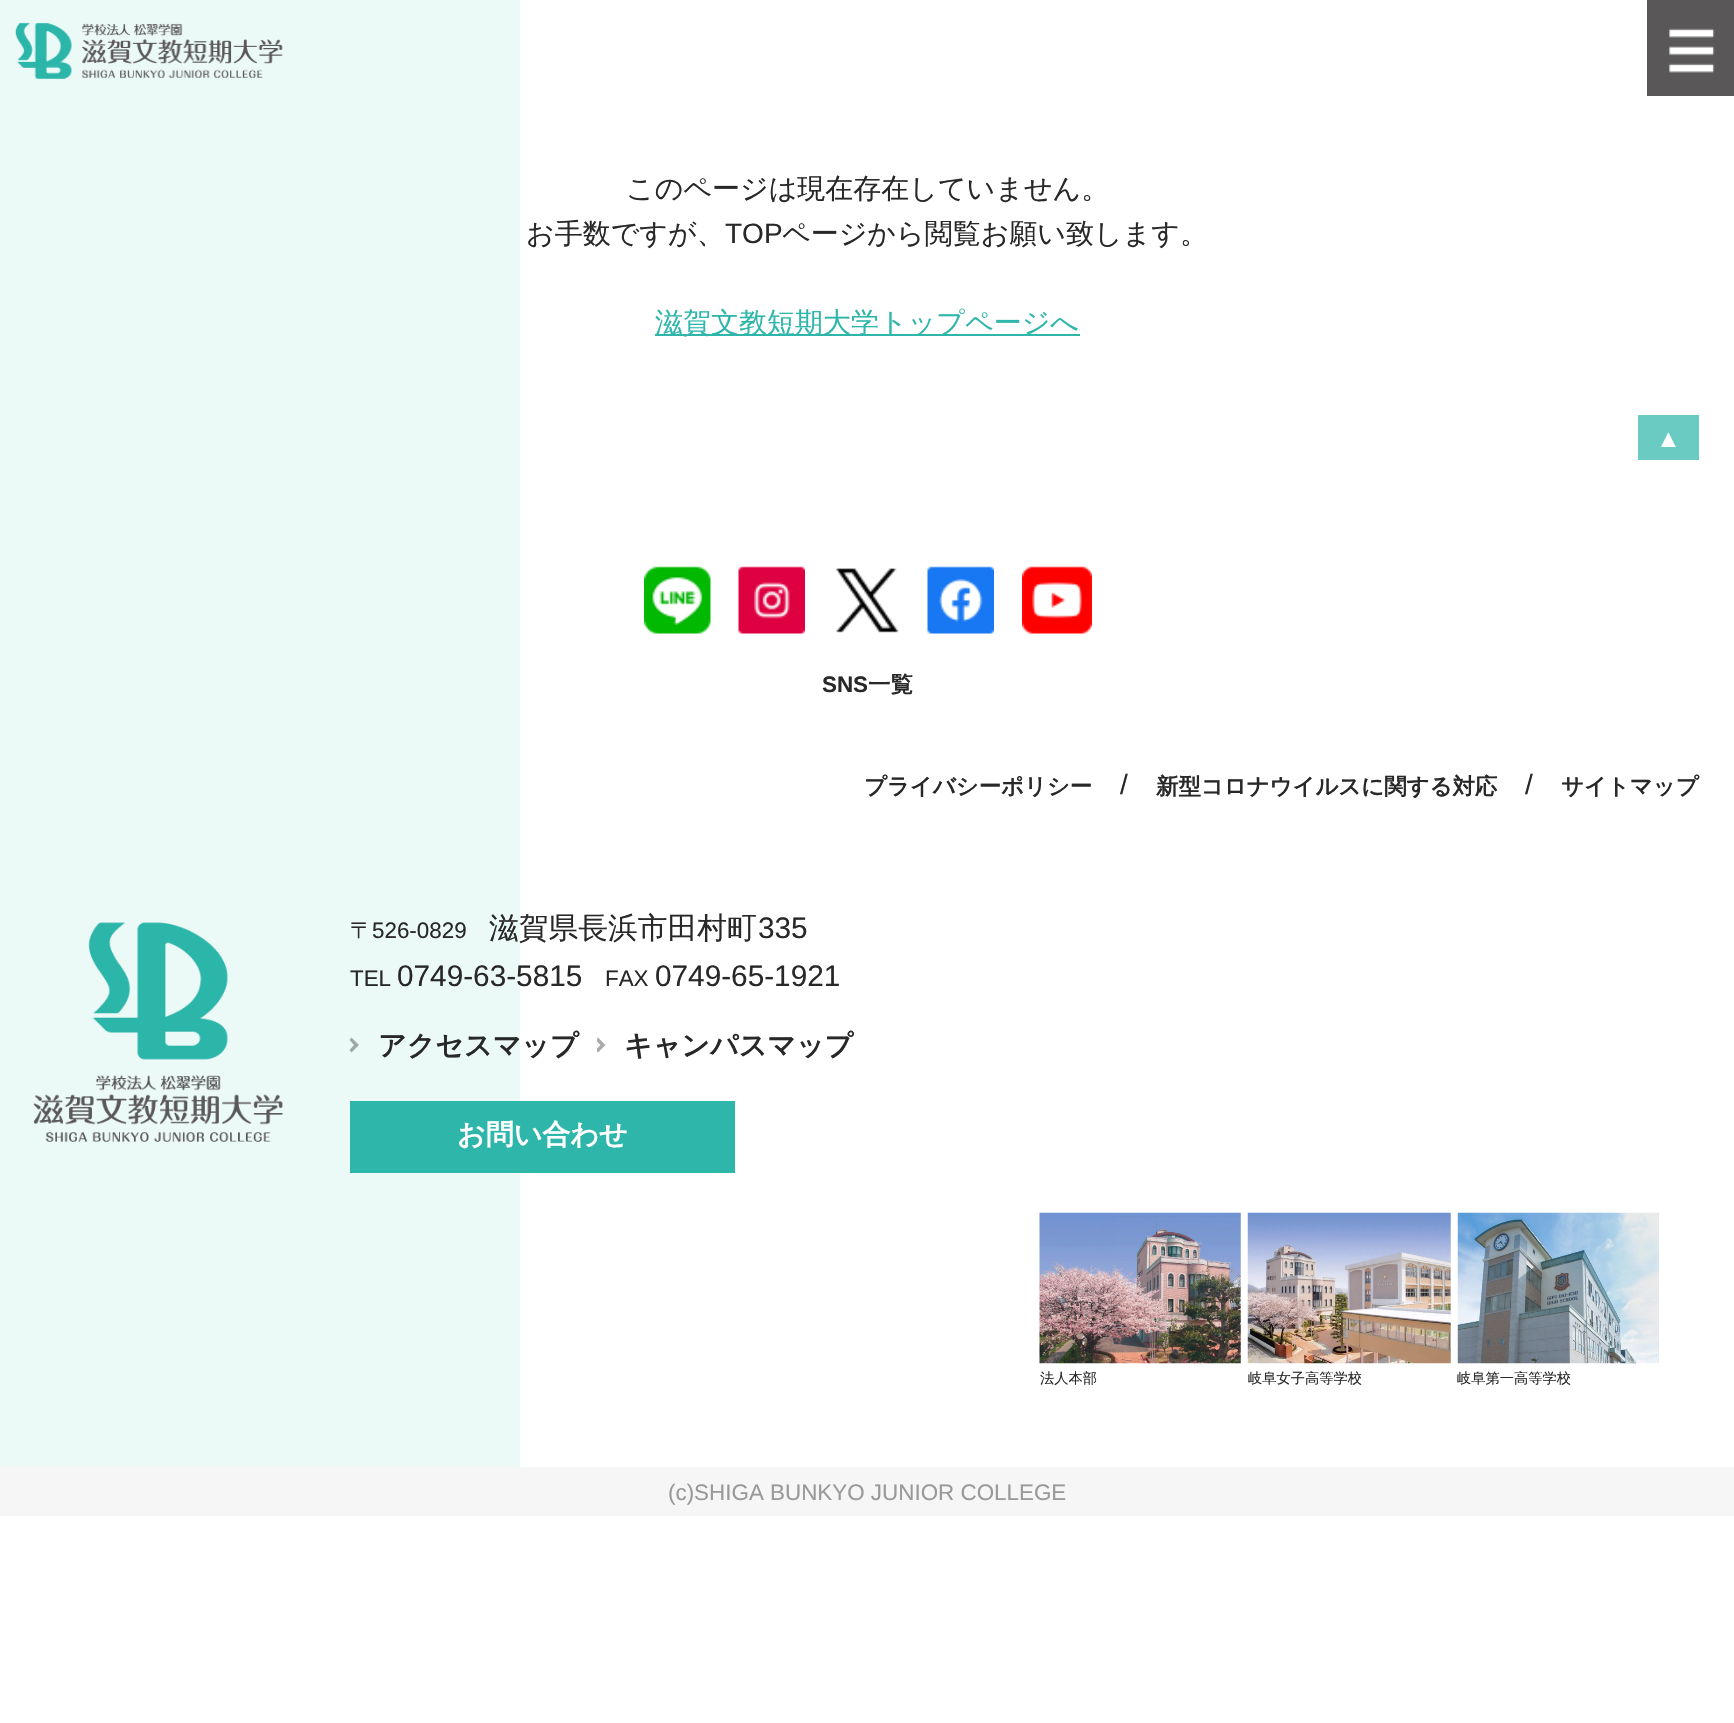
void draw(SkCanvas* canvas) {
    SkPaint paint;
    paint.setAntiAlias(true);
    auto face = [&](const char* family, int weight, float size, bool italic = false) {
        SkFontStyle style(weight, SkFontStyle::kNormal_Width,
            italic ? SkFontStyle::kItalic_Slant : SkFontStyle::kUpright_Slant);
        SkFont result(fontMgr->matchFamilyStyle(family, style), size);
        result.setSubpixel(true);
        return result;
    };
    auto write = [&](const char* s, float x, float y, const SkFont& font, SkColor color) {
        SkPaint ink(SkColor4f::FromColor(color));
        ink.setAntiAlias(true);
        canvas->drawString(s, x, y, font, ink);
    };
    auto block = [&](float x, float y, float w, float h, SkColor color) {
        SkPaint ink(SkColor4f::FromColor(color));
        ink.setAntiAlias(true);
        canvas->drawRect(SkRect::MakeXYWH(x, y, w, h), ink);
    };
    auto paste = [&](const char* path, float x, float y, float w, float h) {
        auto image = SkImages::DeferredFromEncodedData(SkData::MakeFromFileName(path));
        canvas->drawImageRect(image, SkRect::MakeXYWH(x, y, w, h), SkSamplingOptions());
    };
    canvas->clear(SK_ColorWHITE);
    block(0, 0, 520, 1467, SkColorSetRGB(235, 249, 247));
    paste("pic1.png", 15, 22, 268, 58);
    block(1647, 0, 87, 96, SkColorSetRGB(89, 87, 87));
    paste("pic2.png", 1669, 28, 46, 45);
    auto kFont1 = face("WenQuanYi Zen Hei", 500, 28);
    write("このページは現在存在していません。", 626, 198, kFont1, SkColorSetRGB(40, 40, 40));
    write("お手数ですが、", 526, 243, kFont1, SkColorSetRGB(40, 40, 40));
    auto kFont2 = face("Liberation Sans", 400, 28);
    write("TOP", 725, 243, kFont2, SkColorSetRGB(40, 40, 40));
    write("ページから閲覧お願い致します。", 782, 243, kFont1, SkColorSetRGB(40, 40, 40));
    block(655, 334, 425, 2, SkColorSetRGB(46, 182, 170));
    write("滋賀文教短期大学トップページへ", 655, 332, kFont1, SkColorSetRGB(46, 182, 170));
    block(1638, 415, 61, 45, SkColorSetRGB(105, 203, 194));
    auto kFont3 = face("Liberation Sans", 700, 25);
    write("▲", 1656, 447, kFont3, SK_ColorWHITE);
    paste("pic3.png", 644, 566, 67, 68);
    paste("pic4.png", 738, 566, 67, 68);
    paste("pic5.png", 836, 568, 63, 65);
    paste("pic6.png", 927, 566, 67, 68);
    paste("pic7.png", 1022, 566, 70, 68);
    auto kFont4 = face("Liberation Sans", 700, 22.4f);
    write("SNS", 822, 692, kFont4, SkColorSetRGB(40, 40, 40));
    auto kFont5 = face("WenQuanYi Zen Hei", 700, 22.4f);
    write("一覧", 868, 692, kFont5, SkColorSetRGB(40, 40, 40));
    write("プライバシーポリシー", 864, 794, kFont5, SkColorSetRGB(40, 40, 40));
    write("/", 1120, 794, kFont2, SkColorSetRGB(40, 40, 40));
    write("新型コロナウイルスに関する対応", 1156, 794, kFont5, SkColorSetRGB(40, 40, 40));
    write("/", 1525, 794, kFont2, SkColorSetRGB(40, 40, 40));
    write("サイトマップ", 1561, 794, kFont5, SkColorSetRGB(40, 40, 40));
    paste("pic8.png", 33, 922, 250, 220);
    auto kFont6 = face("WenQuanYi Zen Hei", 500, 22.4f);
    write("〒", 350, 938, kFont6, SkColorSetRGB(40, 40, 40));
    auto kFont7 = face("Liberation Sans", 400, 22.4f);
    write("526-0829", 372, 938, kFont7, SkColorSetRGB(40, 40, 40));
    auto kFont8 = face("WenQuanYi Zen Hei", 500, 29.75f);
    write("滋賀県長浜市田村町", 489, 938, kFont8, SkColorSetRGB(40, 40, 40));
    auto kFont9 = face("Liberation Sans", 400, 29.75f);
    write("335", 758, 938, kFont9, SkColorSetRGB(40, 40, 40));
    write("TEL", 350, 986, kFont7, SkColorSetRGB(40, 40, 40));
    write("0749-63-5815", 397, 986, kFont9, SkColorSetRGB(40, 40, 40));
    write("FAX", 605, 986, kFont7, SkColorSetRGB(40, 40, 40));
    write("0749-65-1921", 655, 986, kFont9, SkColorSetRGB(40, 40, 40));
    paint.setColor(SkColorSetRGB(162, 168, 167));
    canvas->drawPath(SkPathBuilder().moveTo(351.5f, 1037.5f).lineTo(359, 1045).lineTo(354, 1045).lineTo(349.5f, 1040).close().moveTo(359, 1045).lineTo(351.5f, 1052.5f).lineTo(349.5f, 1050).lineTo(354, 1045).close().detach(), paint);
    auto kFont10 = face("WenQuanYi Zen Hei", 700, 28);
    write("アクセスマップ", 378, 1055, kFont10, SkColorSetRGB(40, 40, 40));
    canvas->save();
    canvas->clipRect(SkRect::MakeXYWH(597, 1001, 275, 93));
    paint.setColor(SkColorSetRGB(172, 171, 171));
    canvas->drawPath(SkPathBuilder().moveTo(598, 1037.5f).lineTo(605.5f, 1045).lineTo(600.5f, 1045).lineTo(595.5f, 1040).close().moveTo(605.5f, 1045).lineTo(598, 1052.5f).lineTo(595.5f, 1050).lineTo(600.5f, 1045).close().detach(), paint);
    canvas->restore();
    write("キャンパスマップ", 624, 1055, kFont10, SkColorSetRGB(40, 40, 40));
    block(350, 1101, 385, 72, SkColorSetRGB(46, 182, 170));
    write("お問い合わせ", 457, 1144, kFont10, SK_ColorWHITE);
    paste("pic9.png", 1039, 1212, 202, 152);
    auto kFont11 = face("WenQuanYi Zen Hei", 500, 14.25f);
    write("法人本部", 1040, 1383, kFont11, SkColorSetRGB(40, 40, 40));
    paste("pic10.png", 1247, 1212, 204, 152);
    write("岐阜女子高等学校", 1248, 1383, kFont11, SkColorSetRGB(40, 40, 40));
    paste("pic11.png", 1457, 1212, 202, 152);
    write("岐阜第一高等学校", 1457, 1383, kFont11, SkColorSetRGB(40, 40, 40));
    block(0, 1467, 1734, 49, SkColorSetRGB(246, 246, 246));
    write("(c)SHIGA BUNKYO JUNIOR COLLEGE", 668, 1500, kFont7, SkColorSetRGB(153, 153, 153));
}
